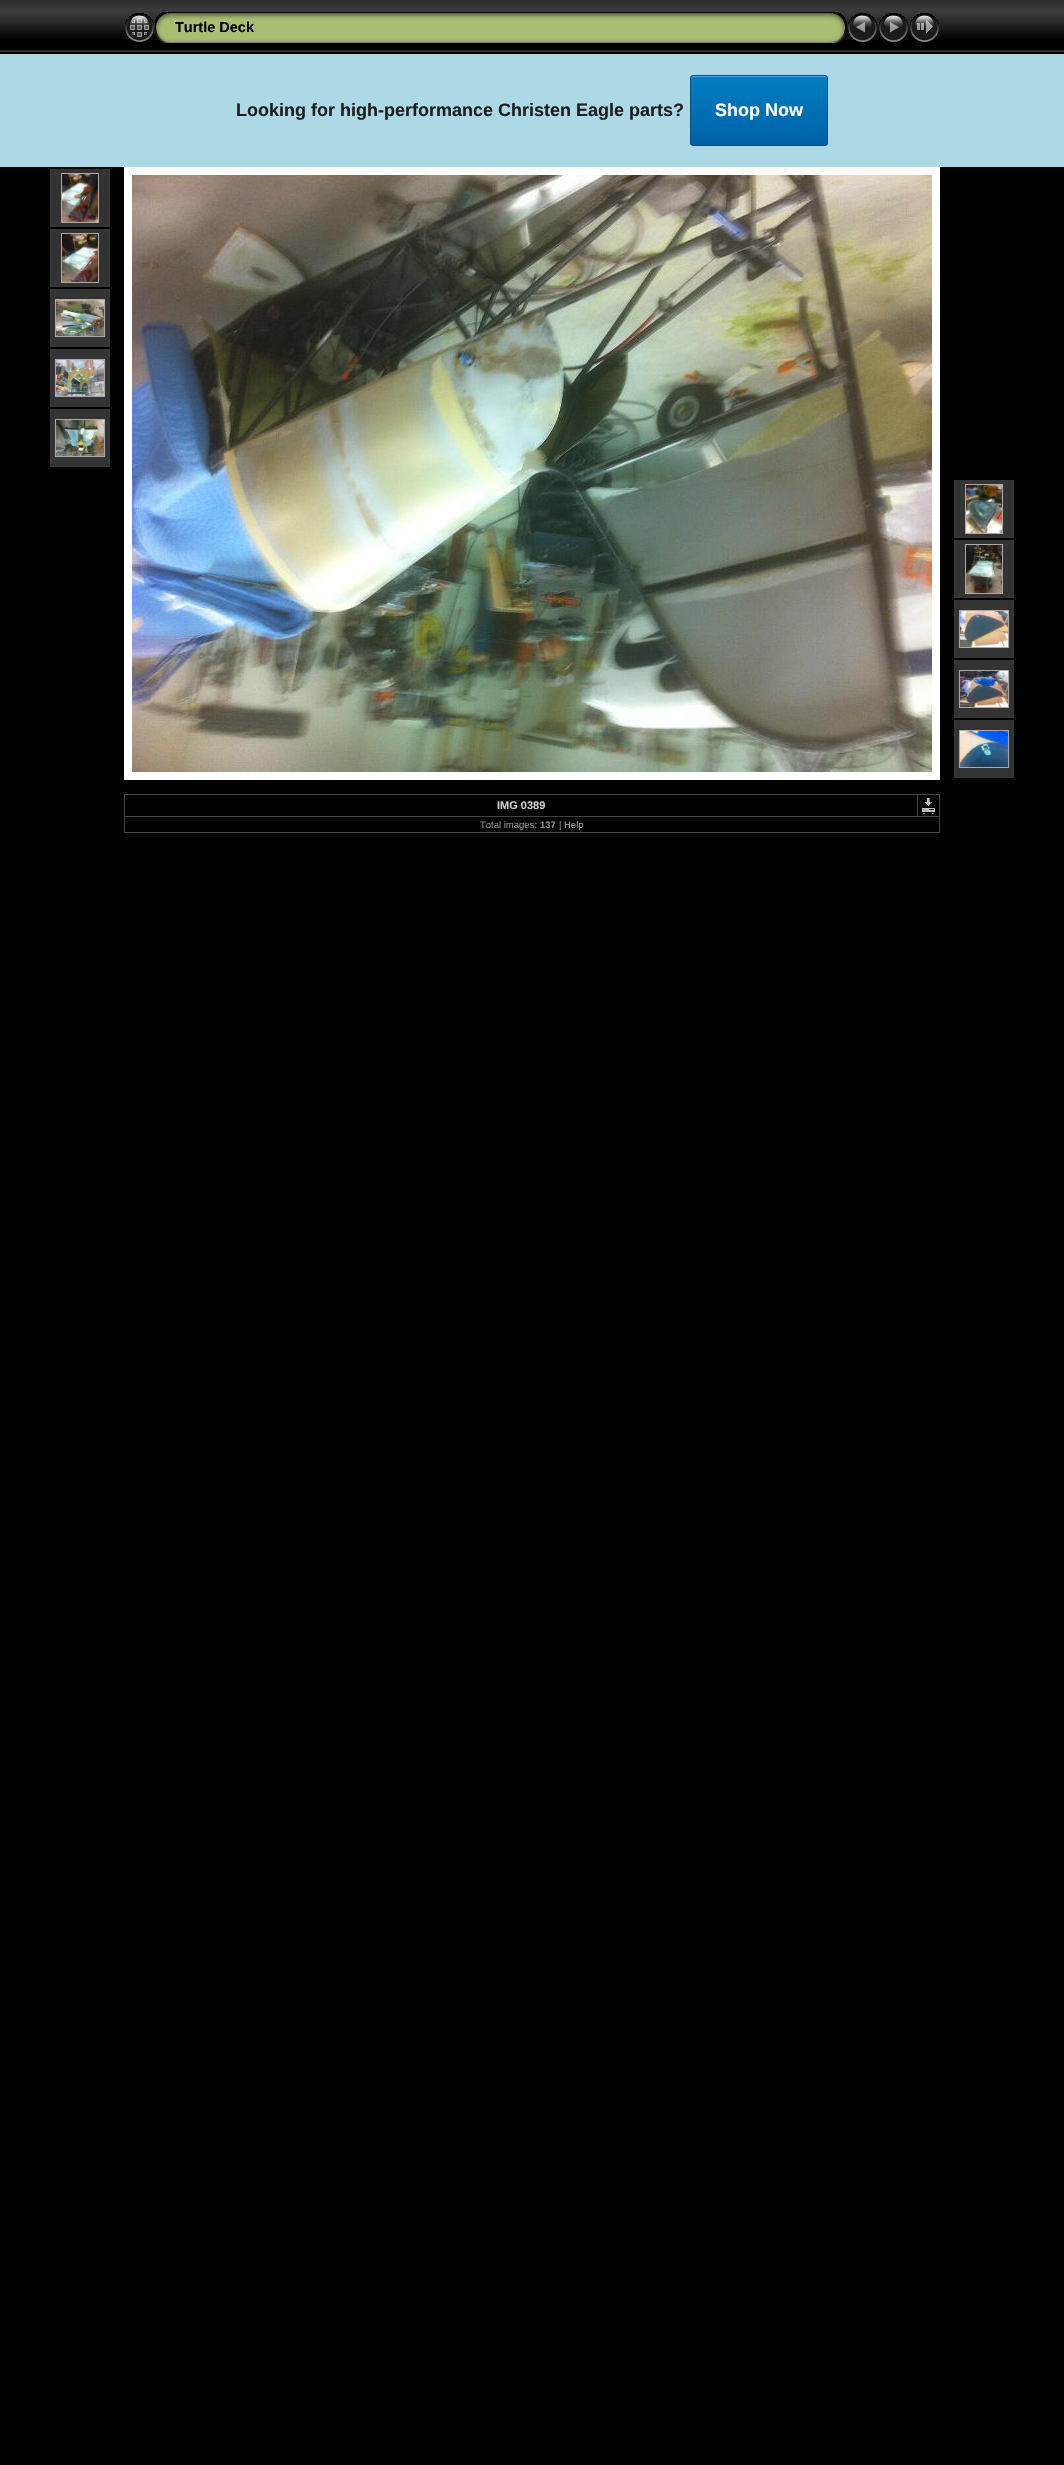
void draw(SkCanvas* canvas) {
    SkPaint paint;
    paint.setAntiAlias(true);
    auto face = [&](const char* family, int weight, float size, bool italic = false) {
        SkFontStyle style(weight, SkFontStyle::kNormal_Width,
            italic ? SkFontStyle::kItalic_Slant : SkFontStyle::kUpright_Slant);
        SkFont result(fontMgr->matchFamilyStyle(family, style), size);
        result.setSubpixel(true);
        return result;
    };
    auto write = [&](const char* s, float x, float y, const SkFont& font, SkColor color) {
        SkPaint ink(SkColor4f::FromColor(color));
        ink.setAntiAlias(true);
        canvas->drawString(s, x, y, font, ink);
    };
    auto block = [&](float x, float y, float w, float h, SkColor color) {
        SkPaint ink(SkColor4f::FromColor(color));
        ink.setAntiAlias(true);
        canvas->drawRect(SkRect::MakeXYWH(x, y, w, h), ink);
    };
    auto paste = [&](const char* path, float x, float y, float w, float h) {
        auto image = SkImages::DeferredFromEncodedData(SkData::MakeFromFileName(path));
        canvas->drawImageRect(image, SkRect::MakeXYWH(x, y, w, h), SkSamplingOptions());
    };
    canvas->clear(SK_ColorBLACK);
    paste("pic1.png", 0, 0, 1064, 52);
    paste("pic2.png", 125, 13, 29, 29);
    paste("pic3.png", 155, 12, 20, 31);
    paste("pic4.png", 175, 12, 652, 31);
    auto kFont1 = face("Liberation Sans", 700, 14.5f);
    write("Turtle Deck", 175, 32, kFont1, SK_ColorBLACK);
    paste("pic5.png", 827, 12, 20, 31);
    paste("pic6.png", 848, 13, 29, 29);
    paste("pic7.png", 879, 13, 29, 29);
    paste("pic8.png", 910, 13, 29, 29);
    block(0, 54, 1064, 113, SkColorSetRGB(173, 216, 230));
    auto kFont2 = face("Liberation Sans", 700, 18);
    write("Looking for high-performance Christen Eagle parts?", 236, 116, kFont2, SkColorSetRGB(30, 30, 30));
    canvas->save();
    canvas->clipPath(SkPathBuilder().moveTo(693, 75).lineTo(825, 75).cubicTo(826.5f, 75, 828, 76.5f, 828, 78).lineTo(828, 143).cubicTo(828, 144.5f, 826.5f, 146, 825, 146).lineTo(693, 146).cubicTo(691.5f, 146, 690, 144.5f, 690, 143).lineTo(690, 78).cubicTo(690, 76.5f, 691.5f, 75, 693, 75).close().detach(), true);
    {
        const SkColor colors[] = {SkColorSetRGB(0, 125, 193), SkColorSetRGB(0, 97, 167)};
        const float stops[] = {0.05f, 1};
        const SkPoint ends[] = {{759, 76}, {759, 145}};
        paint.setShader(SkGradientShader::MakeLinear(ends, colors, stops, 2, SkTileMode::kClamp));
        paint.setAlpha(255);
    }
    canvas->drawRect(SkRect::MakeXYWH(690, 76, 138, 69), paint);
    canvas->restore();
    paint.setShader(nullptr);
    paint.setColor(SkColorSetRGB(84, 163, 247));
    canvas->drawPath(SkPathBuilder().moveTo(693, 77).lineTo(825, 77).cubicTo(826, 77, 827, 78, 827, 79).cubicTo(827, 78, 827, 76, 825, 76).lineTo(693, 76).cubicTo(691, 76, 691, 78, 691, 79).cubicTo(691, 78, 692, 77, 693, 77).close().detach(), paint);
    paint.setStyle(SkPaint::kStroke_Style);
    paint.setStrokeWidth(1);
    paint.setColor(SkColorSetRGB(18, 77, 119));
    canvas->drawRoundRect(SkRect::MakeXYWH(690.5f, 75.5f, 137, 70), 2.5f, 2.5f, paint);
    write("Shop Now", 715, 116, kFont2, SK_ColorWHITE);
    block(50, 169, 60, 58, SkColorSetRGB(51, 51, 51));
    paint.setColor(SkColorSetRGB(170, 170, 170));
    canvas->drawRect(SkRect::MakeXYWH(61.5f, 173.5f, 37, 49), paint);
    paste("pic9.png", 62, 174, 36, 48);
    block(50, 229, 60, 58, SkColorSetRGB(51, 51, 51));
    canvas->drawRect(SkRect::MakeXYWH(61.5f, 233.5f, 37, 49), paint);
    paste("pic10.png", 62, 234, 36, 48);
    block(50, 289, 60, 58, SkColorSetRGB(51, 51, 51));
    canvas->drawRect(SkRect::MakeXYWH(55.5f, 299.5f, 49, 37), paint);
    paste("pic11.png", 56, 300, 48, 36);
    block(50, 349, 60, 58, SkColorSetRGB(51, 51, 51));
    canvas->drawRect(SkRect::MakeXYWH(55.5f, 359.5f, 49, 37), paint);
    paste("pic12.png", 56, 360, 48, 36);
    block(50, 409, 60, 58, SkColorSetRGB(51, 51, 51));
    canvas->drawRect(SkRect::MakeXYWH(55.5f, 419.5f, 49, 37), paint);
    paste("pic13.png", 56, 420, 48, 36);
    paint.setStrokeWidth(8);
    paint.setColor(SK_ColorWHITE);
    canvas->drawRect(SkRect::MakeXYWH(128, 171, 808, 605), paint);
    paste("pic14.png", 132, 175, 800, 597);
    block(954, 480, 60, 58, SkColorSetRGB(51, 51, 51));
    paint.setStrokeWidth(1);
    paint.setColor(SkColorSetRGB(170, 170, 170));
    canvas->drawRect(SkRect::MakeXYWH(965.5f, 484.5f, 37, 49), paint);
    paste("pic15.png", 966, 485, 36, 48);
    block(954, 540, 60, 58, SkColorSetRGB(51, 51, 51));
    canvas->drawRect(SkRect::MakeXYWH(965.5f, 544.5f, 37, 49), paint);
    paste("pic16.png", 966, 545, 36, 48);
    block(954, 600, 60, 58, SkColorSetRGB(51, 51, 51));
    canvas->drawRect(SkRect::MakeXYWH(959.5f, 610.5f, 49, 37), paint);
    paste("pic17.png", 960, 611, 48, 36);
    block(954, 660, 60, 58, SkColorSetRGB(51, 51, 51));
    canvas->drawRect(SkRect::MakeXYWH(959.5f, 670.5f, 49, 37), paint);
    paste("pic18.png", 960, 671, 48, 36);
    block(954, 720, 60, 58, SkColorSetRGB(51, 51, 51));
    canvas->drawRect(SkRect::MakeXYWH(959.5f, 730.5f, 49, 37), paint);
    paste("pic19.png", 960, 731, 48, 36);
    block(124, 794, 816, 1, SkColorSetRGB(68, 68, 68));
    block(939, 794, 1, 39, SkColorSetRGB(68, 68, 68));
    block(124, 832, 816, 1, SkColorSetRGB(68, 68, 68));
    block(124, 794, 1, 39, SkColorSetRGB(68, 68, 68));
    auto kFont3 = face("Liberation Sans", 700, 11);
    write("IMG 0389", 497, 809, kFont3, SkColorSetRGB(204, 204, 204));
    block(124, 816, 816, 1, SkColorSetRGB(68, 68, 68));
    block(917, 794, 1, 23, SkColorSetRGB(68, 68, 68));
    paste("pic20.png", 922, 798, 13, 16);
    auto kFont4 = face("Liberation Sans", 400, 9.5f);
    write("Total images:", 480, 828, kFont4, SkColorSetRGB(136, 136, 136));
    auto kFont5 = face("Liberation Sans", 700, 9.5f);
    write("137", 540, 828, kFont5, SkColorSetRGB(136, 136, 136));
    write("|", 559, 828, kFont4, SkColorSetRGB(136, 136, 136));
    write("Help", 564, 828, kFont4, SkColorSetRGB(170, 170, 170));
}
